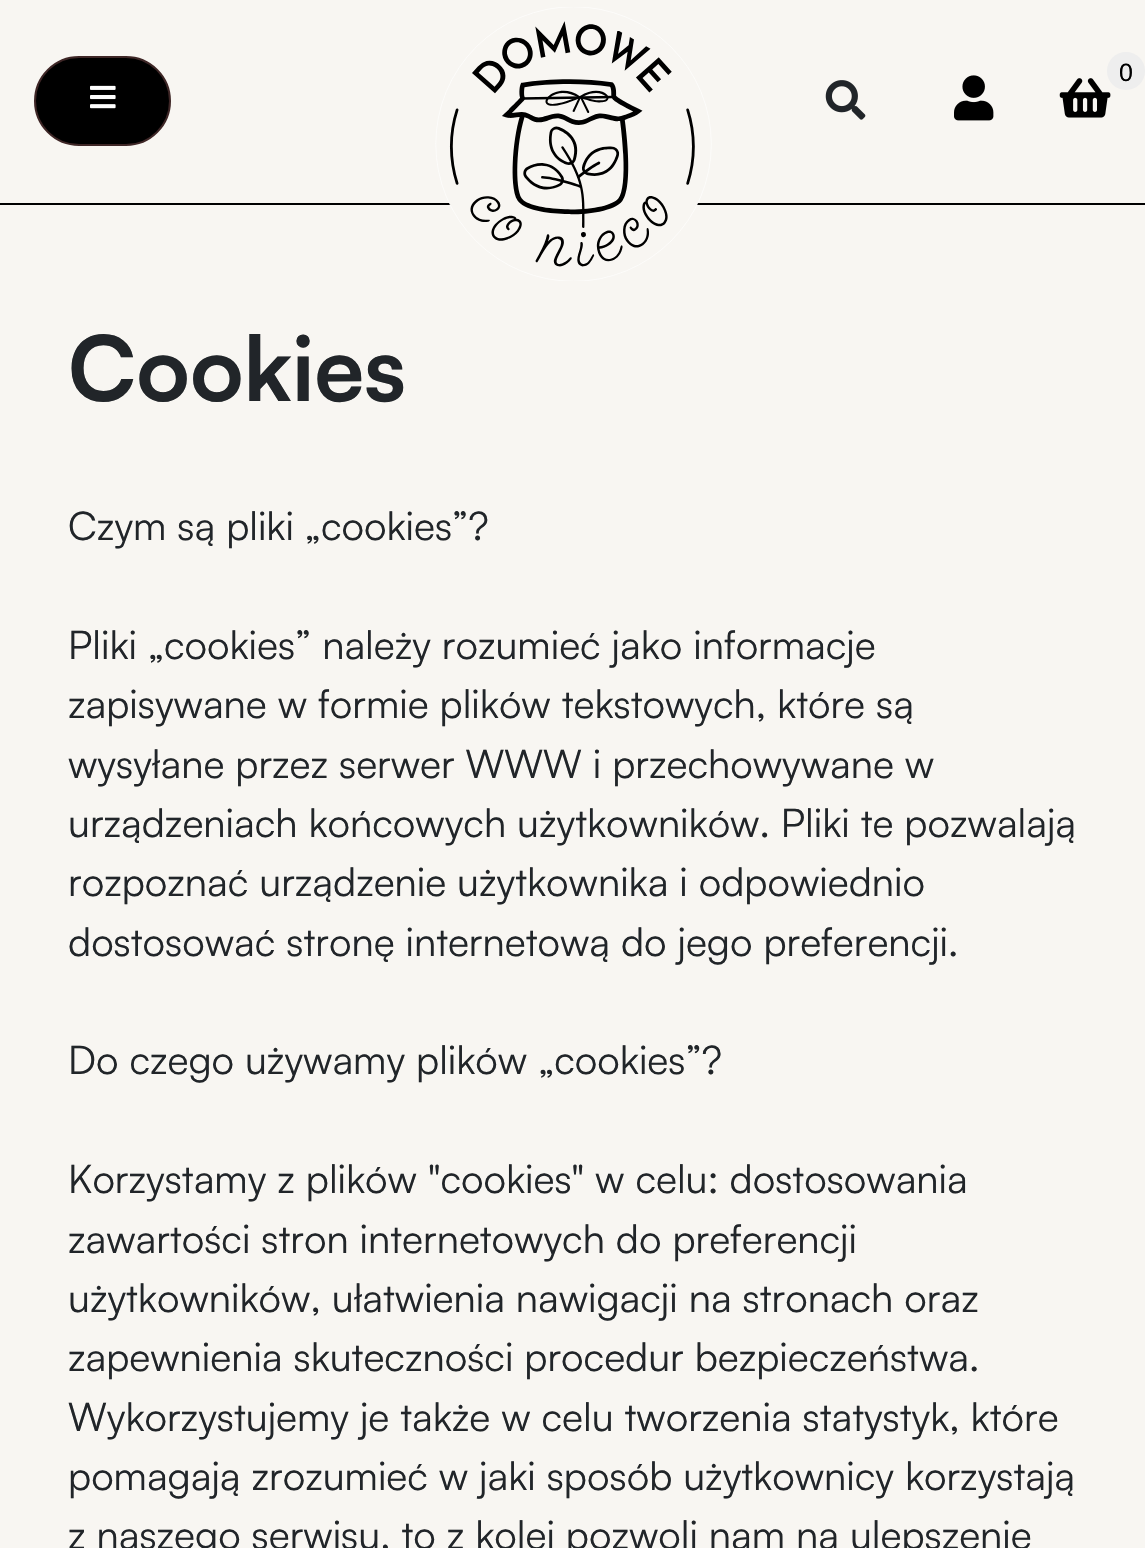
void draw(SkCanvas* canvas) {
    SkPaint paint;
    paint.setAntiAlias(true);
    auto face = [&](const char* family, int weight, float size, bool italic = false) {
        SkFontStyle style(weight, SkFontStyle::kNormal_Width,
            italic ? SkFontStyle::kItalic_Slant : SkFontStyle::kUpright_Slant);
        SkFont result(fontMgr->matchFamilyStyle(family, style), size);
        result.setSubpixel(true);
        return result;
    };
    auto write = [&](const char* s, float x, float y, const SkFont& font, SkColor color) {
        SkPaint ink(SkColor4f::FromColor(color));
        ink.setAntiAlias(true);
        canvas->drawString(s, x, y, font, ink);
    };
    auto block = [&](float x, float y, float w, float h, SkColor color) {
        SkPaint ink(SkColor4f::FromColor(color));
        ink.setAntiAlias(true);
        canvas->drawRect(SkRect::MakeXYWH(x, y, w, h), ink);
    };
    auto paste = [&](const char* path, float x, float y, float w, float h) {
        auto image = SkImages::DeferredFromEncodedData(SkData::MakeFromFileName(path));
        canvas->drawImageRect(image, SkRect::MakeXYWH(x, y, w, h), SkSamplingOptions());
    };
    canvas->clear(SkColorSetRGB(248, 246, 242));
    block(0, 203, 1145, 2, SK_ColorBLACK);
    paint.setColor(SK_ColorBLACK);
    canvas->drawRoundRect(SkRect::MakeXYWH(35, 57, 135, 88), 44, 44, paint);
    paint.setStyle(SkPaint::kStroke_Style);
    paint.setStrokeWidth(2);
    paint.setColor(SkColorSetRGB(62, 38, 38));
    canvas->drawRoundRect(SkRect::MakeXYWH(35, 57, 135, 88), 44, 44, paint);
    paste("pic1.png", 90, 85, 26, 24);
    paste("pic2.png", 435, 7, 277, 274);
    paste("pic3.png", 1059, 78, 52, 40);
    paint.setStyle(SkPaint::kFill_Style);
    paint.setColor(SkColorSetRGB(238, 238, 238));
    canvas->drawCircle(1126, 71, 19, paint);
    auto kFont1 = face("Liberation Sans", 400, 25);
    write("0", 1119, 81, kFont1, SK_ColorBLACK);
    paste("pic4.png", 825, 80, 41, 40);
    paste("pic5.png", 954, 75, 40, 46);
    auto kFont2 = face("Satoshi", 700, 90);
    write("Cookies", 68, 401, kFont2, SkColorSetRGB(33, 37, 41));
    auto kFont3 = face("Satoshi", 400, 39.6f);
    write("Czym są pliki „cookies”?", 68, 540, kFont3, SkColorSetRGB(33, 37, 41));
    write("Pliki „cookies” należy rozumieć jako informacje", 68, 659, kFont3, SkColorSetRGB(33, 37, 41));
    write("zapisywane w formie plików tekstowych, które są", 68, 718, kFont3, SkColorSetRGB(33, 37, 41));
    write("wysyłane przez serwer WWW i przechowywane w", 68, 778, kFont3, SkColorSetRGB(33, 37, 41));
    write("urządzeniach końcowych użytkowników. Pliki te pozwalają", 68, 837, kFont3, SkColorSetRGB(33, 37, 41));
    write("rozpoznać urządzenie użytkownika i odpowiednio", 68, 896, kFont3, SkColorSetRGB(33, 37, 41));
    write("dostosować stronę internetową do jego preferencji.", 68, 956, kFont3, SkColorSetRGB(33, 37, 41));
    write("Do czego używamy plików „cookies”?", 68, 1074, kFont3, SkColorSetRGB(33, 37, 41));
    write("Korzystamy z plików \"cookies\" w celu: dostosowania", 68, 1193, kFont3, SkColorSetRGB(33, 37, 41));
    write("zawartości stron internetowych do preferencji", 68, 1253, kFont3, SkColorSetRGB(33, 37, 41));
    write("użytkowników, ułatwienia nawigacji na stronach oraz", 68, 1312, kFont3, SkColorSetRGB(33, 37, 41));
    write("zapewnienia skuteczności procedur bezpieczeństwa.", 68, 1371, kFont3, SkColorSetRGB(33, 37, 41));
    write("Wykorzystujemy je także w celu tworzenia statystyk, które", 68, 1431, kFont3, SkColorSetRGB(33, 37, 41));
    write("pomagają zrozumieć w jaki sposób użytkownicy korzystają", 68, 1490, kFont3, SkColorSetRGB(33, 37, 41));
    write("z naszego serwisu, to z kolei pozwoli nam na ulepszenie", 68, 1549, kFont3, SkColorSetRGB(33, 37, 41));
}
